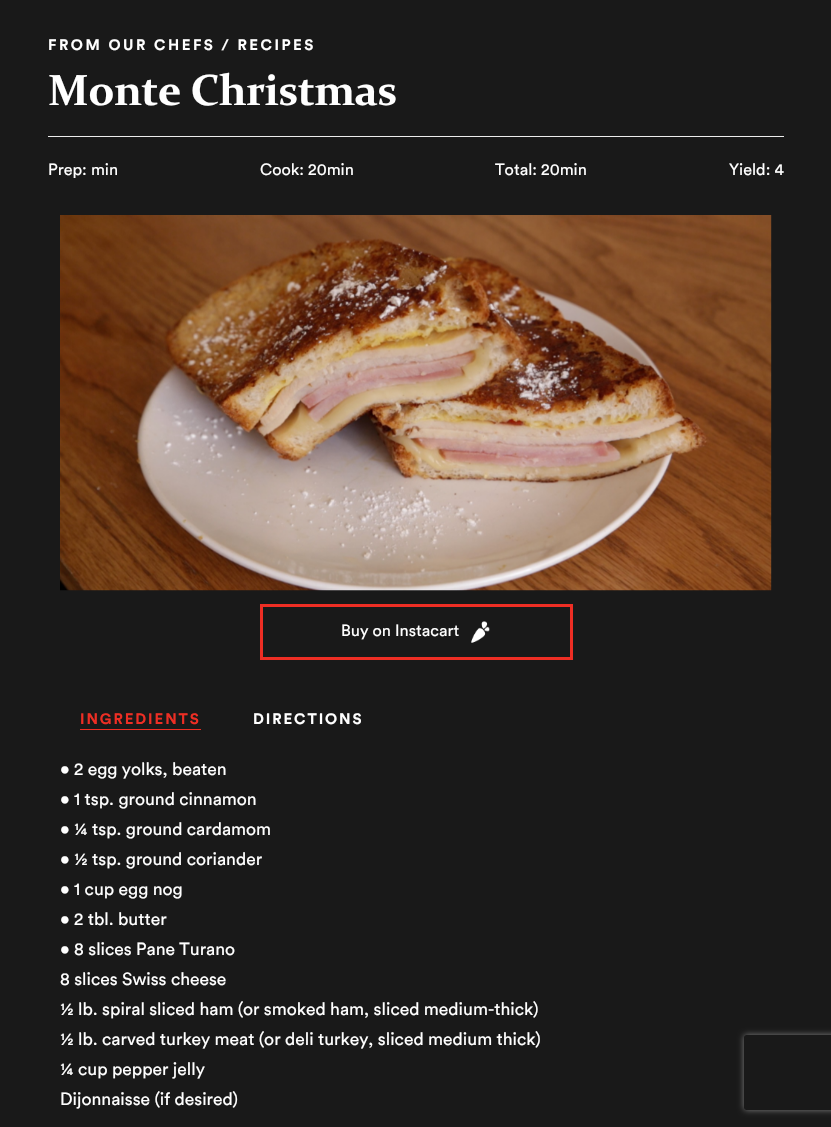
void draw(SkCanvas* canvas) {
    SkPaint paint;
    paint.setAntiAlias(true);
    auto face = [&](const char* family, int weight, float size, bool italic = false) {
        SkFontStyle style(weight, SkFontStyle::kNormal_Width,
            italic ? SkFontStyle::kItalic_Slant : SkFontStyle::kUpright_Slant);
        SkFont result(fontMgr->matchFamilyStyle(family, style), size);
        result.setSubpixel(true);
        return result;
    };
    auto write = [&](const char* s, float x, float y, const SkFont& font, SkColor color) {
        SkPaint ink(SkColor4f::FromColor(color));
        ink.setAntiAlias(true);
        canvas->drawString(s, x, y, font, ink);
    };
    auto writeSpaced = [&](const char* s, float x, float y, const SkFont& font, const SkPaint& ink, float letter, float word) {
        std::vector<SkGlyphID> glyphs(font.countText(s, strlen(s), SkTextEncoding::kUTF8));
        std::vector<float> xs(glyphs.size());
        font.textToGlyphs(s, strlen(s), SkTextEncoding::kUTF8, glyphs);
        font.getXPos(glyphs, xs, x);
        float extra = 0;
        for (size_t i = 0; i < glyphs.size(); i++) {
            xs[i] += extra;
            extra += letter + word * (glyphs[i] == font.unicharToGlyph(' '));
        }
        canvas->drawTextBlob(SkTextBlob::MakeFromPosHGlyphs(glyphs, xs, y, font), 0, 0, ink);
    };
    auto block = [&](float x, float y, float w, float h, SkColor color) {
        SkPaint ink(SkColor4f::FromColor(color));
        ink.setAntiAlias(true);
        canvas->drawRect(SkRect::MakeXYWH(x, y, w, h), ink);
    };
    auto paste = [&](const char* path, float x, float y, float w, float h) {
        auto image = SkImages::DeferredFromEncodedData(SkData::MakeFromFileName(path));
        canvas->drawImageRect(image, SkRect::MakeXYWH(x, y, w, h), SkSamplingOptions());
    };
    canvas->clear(SkColorSetRGB(25, 25, 25));
    block(48, 136, 736, 1, SkColorSetRGB(236, 236, 236));
    auto kFont1 = face("Circular", 700, 15);
    paint.setColor(SK_ColorWHITE);
    writeSpaced("FROM OUR CHEFS / RECIPES", 48, 50, kFont1, paint, 2.5f, 0);
    auto kFont2 = face("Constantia", 700, 43.75f);
    writeSpaced("Monte Christmas", 48, 105, kFont2, paint, -0.6f, 0);
    auto kFont3 = face("Circular", 400, 16.25f);
    write("Prep: min", 48, 175, kFont3, SK_ColorWHITE);
    write("Cook: 20min", 260, 175, kFont3, SK_ColorWHITE);
    write("Total: 20min", 495, 175, kFont3, SK_ColorWHITE);
    write("Yield: 4", 729, 175, kFont3, SK_ColorWHITE);
    paste("pic1.png", 60, 215, 712, 376);
    paint.setStyle(SkPaint::kStroke_Style);
    paint.setStrokeWidth(3);
    paint.setColor(SkColorSetRGB(238, 46, 36));
    canvas->drawRect(SkRect::MakeXYWH(261.5f, 605.5f, 310, 53), paint);
    write("Buy on Instacart", 341, 636, kFont3, SK_ColorWHITE);
    paste("pic2.png", 471, 621, 19, 22);
    block(80, 729, 121, 1, SkColorSetRGB(238, 46, 36));
    paint.setStyle(SkPaint::kFill_Style);
    writeSpaced("INGREDIENTS", 80, 724, kFont1, paint, 1.9f, 0);
    paint.setColor(SK_ColorWHITE);
    writeSpaced("DIRECTIONS", 253, 724, kFont1, paint, 1.9f, 0);
    auto kFont4 = face("Circular", 400, 17.5f);
    write("• 2 egg yolks, beaten", 60, 775, kFont4, SK_ColorWHITE);
    write("• 1 tsp. ground cinnamon", 60, 805, kFont4, SK_ColorWHITE);
    write("• ¼ tsp. ground cardamom", 60, 835, kFont4, SK_ColorWHITE);
    write("• ½ tsp. ground coriander", 60, 865, kFont4, SK_ColorWHITE);
    write("• 1 cup egg nog", 60, 895, kFont4, SK_ColorWHITE);
    write("• 2 tbl. butter", 60, 925, kFont4, SK_ColorWHITE);
    write("• 8 slices Pane Turano", 60, 955, kFont4, SK_ColorWHITE);
    write("8 slices Swiss cheese", 60, 985, kFont4, SK_ColorWHITE);
    write("½ lb. spiral sliced ham (or smoked ham, sliced medium-thick)", 60, 1015, kFont4, SK_ColorWHITE);
    write("½ lb. carved turkey meat (or deli turkey, sliced medium thick)", 60, 1045, kFont4, SK_ColorWHITE);
    write("¼ cup pepper jelly", 60, 1075, kFont4, SK_ColorWHITE);
    write("Dijonnaisse (if desired)", 60, 1105, kFont4, SK_ColorWHITE);
    canvas->save();
    canvas->clipPath(SkPathBuilder(SkPathFillType::kEvenOdd).moveTo(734, 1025).lineTo(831, 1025).lineTo(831, 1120).lineTo(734, 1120).close().moveTo(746.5f, 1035).lineTo(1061.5f, 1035).cubicTo(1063, 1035, 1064, 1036, 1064, 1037.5f).lineTo(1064, 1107.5f).cubicTo(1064, 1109, 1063, 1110, 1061.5f, 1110).lineTo(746.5f, 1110).cubicTo(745, 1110, 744, 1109, 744, 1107.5f).lineTo(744, 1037.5f).cubicTo(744, 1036, 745, 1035, 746.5f, 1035).close().detach(), true);
    paint.setColor(SkColorSetRGB(128, 128, 128));
    paint.setMaskFilter(SkMaskFilter::MakeBlur(kNormal_SkBlurStyle, 3));
    canvas->drawRoundRect(SkRect::MakeXYWH(744, 1035, 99, 75), 2.5f, 2.5f, paint);
    paint.setMaskFilter(nullptr);
    canvas->restore();
}
